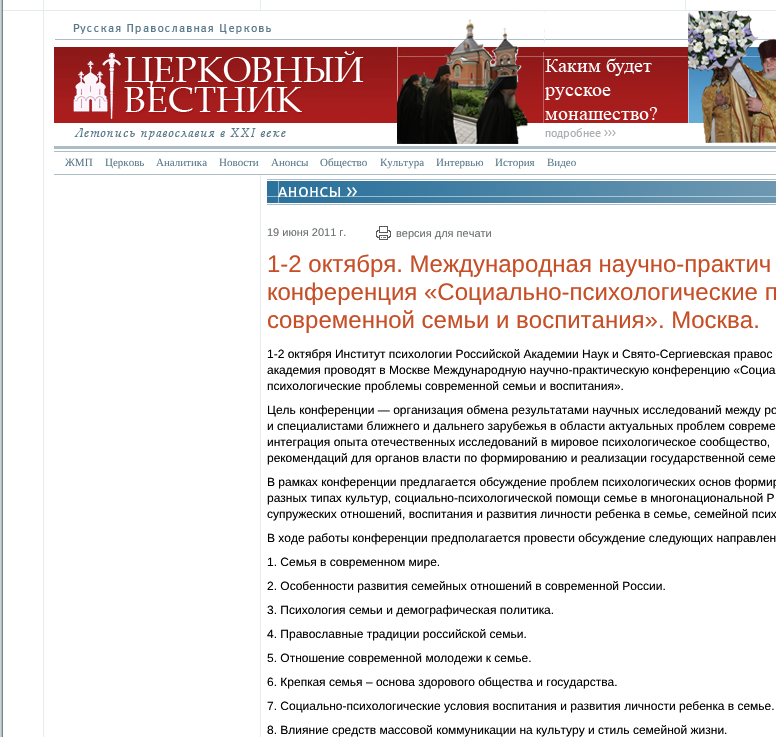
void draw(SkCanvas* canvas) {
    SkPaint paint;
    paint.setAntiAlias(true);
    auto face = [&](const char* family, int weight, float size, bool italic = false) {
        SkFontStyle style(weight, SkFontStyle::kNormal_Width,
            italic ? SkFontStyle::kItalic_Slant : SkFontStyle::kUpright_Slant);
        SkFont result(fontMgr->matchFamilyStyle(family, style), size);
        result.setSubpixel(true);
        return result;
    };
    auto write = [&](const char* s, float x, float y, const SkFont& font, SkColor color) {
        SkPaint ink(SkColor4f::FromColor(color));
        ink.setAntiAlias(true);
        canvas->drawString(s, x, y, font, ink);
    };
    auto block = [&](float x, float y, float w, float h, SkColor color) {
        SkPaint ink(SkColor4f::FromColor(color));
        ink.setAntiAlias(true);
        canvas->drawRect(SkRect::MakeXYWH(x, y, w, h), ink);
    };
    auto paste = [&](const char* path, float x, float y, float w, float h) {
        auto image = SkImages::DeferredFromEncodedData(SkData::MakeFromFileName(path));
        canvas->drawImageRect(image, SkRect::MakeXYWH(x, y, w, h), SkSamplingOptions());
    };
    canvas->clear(SK_ColorWHITE);
    block(0, 0, 1, 737, SkColorSetRGB(201, 213, 217));
    block(1, 0, 1, 737, SkColorSetRGB(174, 185, 189));
    block(2, 0, 1, 737, SkColorSetRGB(127, 135, 138));
    block(3, 10, 773, 1, SkColorSetRGB(230, 235, 237));
    block(43, 0, 1, 10, SkColorSetRGB(230, 235, 237));
    block(260, 0, 1, 10, SkColorSetRGB(230, 235, 237));
    block(685, 0, 1, 10, SkColorSetRGB(230, 235, 237));
    block(43, 11, 1, 726, SkColorSetRGB(230, 235, 237));
    block(54, 146, 722, 3, SkColorSetRGB(173, 189, 197));
    paste("pic1.png", 54, 24, 343, 116);
    paste("pic2.png", 397, 38, 379, 85);
    paste("pic3.png", 397, 11, 260, 133);
    paste("pic4.png", 688, 11, 88, 132);
    block(54, 151, 722, 1, SkColorSetRGB(173, 189, 197));
    block(54, 174, 722, 1, SkColorSetRGB(173, 189, 197));
    auto kFont1 = face("Liberation Serif", 400, 11);
    write("ЖМП", 65, 166, kFont1, SkColorSetRGB(91, 123, 139));
    write("Церковь", 105, 166, kFont1, SkColorSetRGB(91, 123, 139));
    write("Аналитика", 156, 166, kFont1, SkColorSetRGB(91, 123, 139));
    write("Новости", 219, 166, kFont1, SkColorSetRGB(91, 123, 139));
    write("Анонсы", 271, 166, kFont1, SkColorSetRGB(91, 123, 139));
    write("Общество", 320, 166, kFont1, SkColorSetRGB(91, 123, 139));
    write("Культура", 380, 166, kFont1, SkColorSetRGB(91, 123, 139));
    write("Интервью", 436, 166, kFont1, SkColorSetRGB(91, 123, 139));
    write("История", 495, 166, kFont1, SkColorSetRGB(91, 123, 139));
    write("Видео", 547, 166, kFont1, SkColorSetRGB(91, 123, 139));
    block(260, 175, 1, 562, SkColorSetRGB(230, 235, 237));
    block(267, 179, 509, 1, SkColorSetRGB(173, 189, 197));
    block(267, 204, 509, 1, SkColorSetRGB(173, 189, 197));
    paste("pic5.png", 267, 181, 509, 22);
    auto kFont2 = face("Liberation Sans", 400, 11);
    write("19 июня 2011 г.", 267, 236, kFont2, SkColorSetRGB(107, 111, 113));
    paste("pic6.png", 376, 226, 15, 14);
    write("версия для печати", 396, 237, kFont2, SkColorSetRGB(107, 111, 113));
    auto kFont3 = face("Liberation Sans", 400, 24);
    write("1-2 октября. Международная научно-практич", 267, 272, kFont3, SkColorSetRGB(198, 79, 39));
    write("конференция «Социально-психологические п", 267, 300, kFont3, SkColorSetRGB(198, 79, 39));
    write("современной семьи и воспитания». Москва.", 267, 328, kFont3, SkColorSetRGB(198, 79, 39));
    auto kFont4 = face("Liberation Sans", 400, 12);
    write("1-2 октября Институт психологии Российской Академии Наук и Свято-Сергиевская правос", 267, 358, kFont4, SK_ColorBLACK);
    write("академия проводят в Москве Международную научно-практическую конференцию «Социа", 267, 374, kFont4, SK_ColorBLACK);
    write("психологические проблемы современной семьи и воспитания».", 267, 390, kFont4, SK_ColorBLACK);
    write("Цель конференции — организация обмена результатами научных исследований между ро", 267, 414, kFont4, SK_ColorBLACK);
    write("и специалистами ближнего и дальнего зарубежья в области актуальных проблем совреме", 267, 430, kFont4, SK_ColorBLACK);
    write("интеграция опыта отечественных исследований в мировое психологическое сообщество,", 267, 446, kFont4, SK_ColorBLACK);
    write("рекомендаций для органов власти по формированию и реализации государственной семе", 267, 462, kFont4, SK_ColorBLACK);
    write("В рамках конференции предлагается обсуждение проблем психологических основ формир", 267, 486, kFont4, SK_ColorBLACK);
    write("разных типах культур, социально-психологической помощи семье в многонациональной Р", 267, 502, kFont4, SK_ColorBLACK);
    write("супружеских отношений, воспитания и развития личности ребенка в семье, семейной псих", 267, 518, kFont4, SK_ColorBLACK);
    write("В ходе работы конференции предполагается провести обсуждение следующих направлен", 267, 542, kFont4, SK_ColorBLACK);
    write("1. Семья в современном мире.", 267, 566, kFont4, SK_ColorBLACK);
    write("2. Особенности развития семейных отношений в современной России.", 267, 590, kFont4, SK_ColorBLACK);
    write("3. Психология семьи и демографическая политика.", 267, 614, kFont4, SK_ColorBLACK);
    write("4. Православные традиции российской семьи.", 267, 638, kFont4, SK_ColorBLACK);
    write("5. Отношение современной молодежи к семье.", 267, 662, kFont4, SK_ColorBLACK);
    write("6. Крепкая семья – основа здорового общества и государства.", 267, 686, kFont4, SK_ColorBLACK);
    write("7. Социально-психологические условия воспитания и развития личности ребенка в семье.", 267, 710, kFont4, SK_ColorBLACK);
    write("8. Влияние средств массовой коммуникации на культуру и стиль семейной жизни.", 267, 734, kFont4, SK_ColorBLACK);
}
